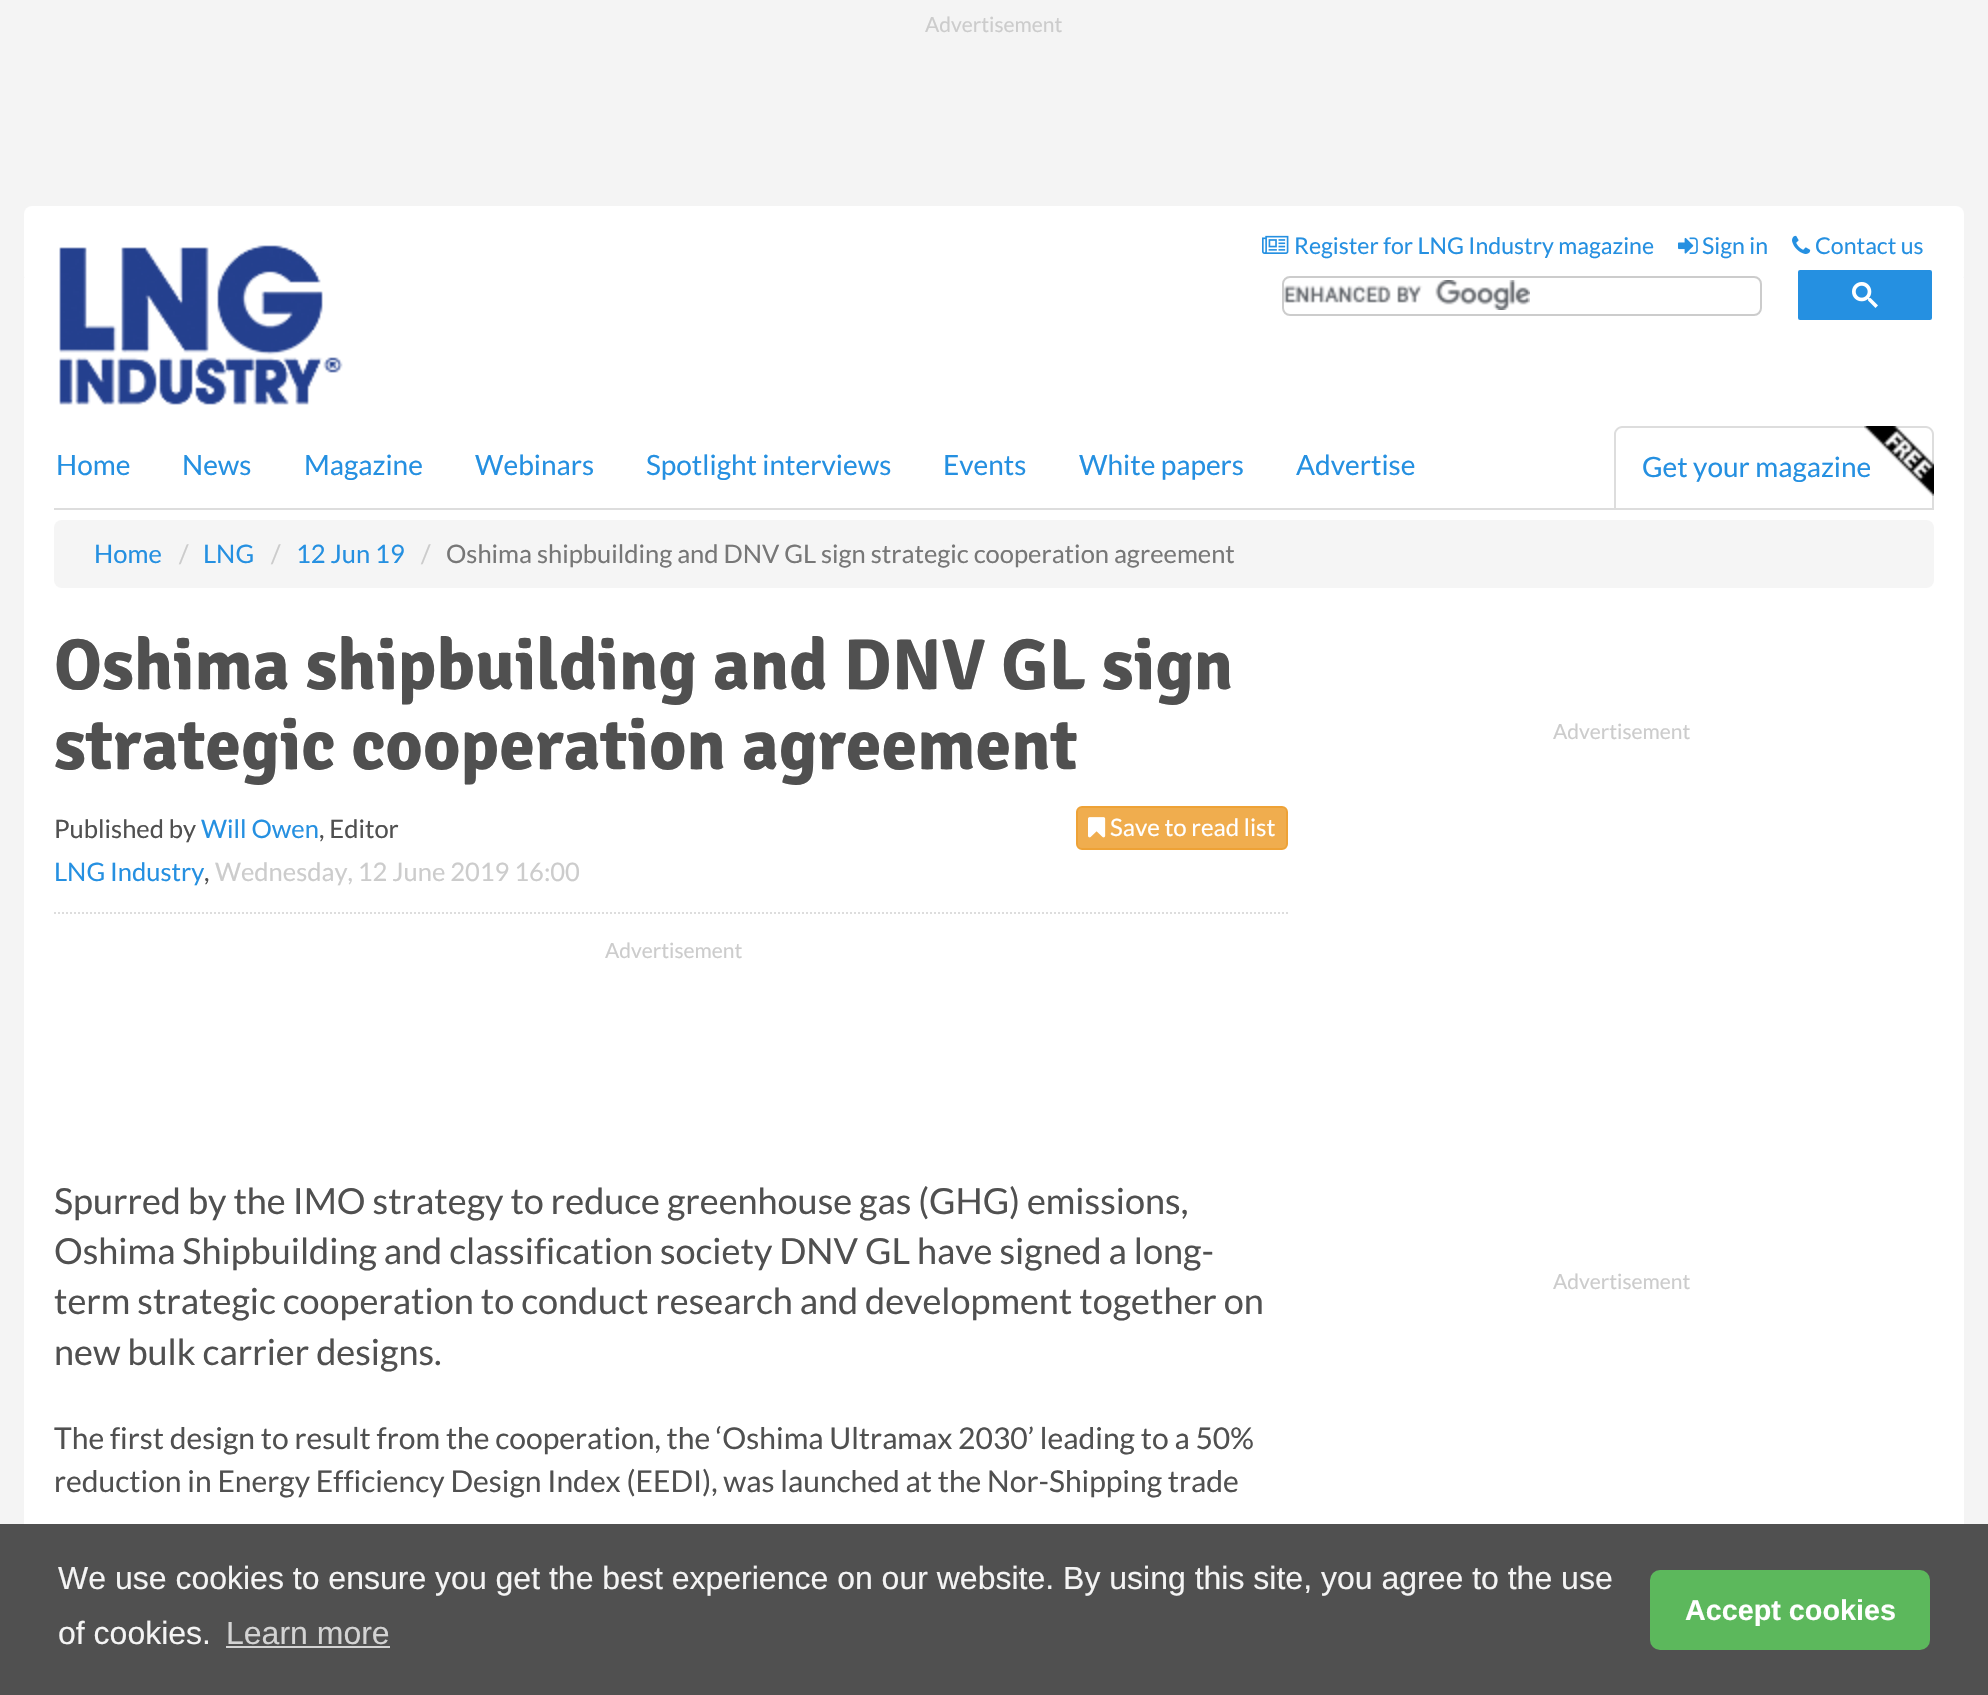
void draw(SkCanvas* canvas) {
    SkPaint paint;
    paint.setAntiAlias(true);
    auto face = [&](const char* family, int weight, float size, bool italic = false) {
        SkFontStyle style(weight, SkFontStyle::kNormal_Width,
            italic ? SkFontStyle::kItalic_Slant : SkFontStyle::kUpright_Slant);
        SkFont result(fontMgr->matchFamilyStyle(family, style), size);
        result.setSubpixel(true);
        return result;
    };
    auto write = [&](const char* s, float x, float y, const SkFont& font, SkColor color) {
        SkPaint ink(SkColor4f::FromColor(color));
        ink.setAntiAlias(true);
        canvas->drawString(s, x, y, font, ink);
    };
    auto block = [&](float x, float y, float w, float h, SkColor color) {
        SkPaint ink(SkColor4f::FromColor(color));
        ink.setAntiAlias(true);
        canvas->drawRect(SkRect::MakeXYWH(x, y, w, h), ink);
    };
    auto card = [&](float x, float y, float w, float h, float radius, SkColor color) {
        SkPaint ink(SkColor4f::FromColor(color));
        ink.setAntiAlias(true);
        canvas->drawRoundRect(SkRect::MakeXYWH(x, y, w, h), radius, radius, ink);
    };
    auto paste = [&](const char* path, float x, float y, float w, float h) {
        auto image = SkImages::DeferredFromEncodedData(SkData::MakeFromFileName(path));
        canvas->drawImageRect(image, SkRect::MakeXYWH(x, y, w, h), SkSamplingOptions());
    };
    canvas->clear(SkColorSetRGB(244, 244, 244));
    auto kFont1 = face("Lato", 400, 21);
    write("Advertisement", 925, 32, kFont1, SkColorSetRGB(204, 204, 204));
    card(24, 206, 1940, 78, 8, SK_ColorWHITE);
    paste("pic1.png", 1262, 235, 27, 19);
    auto kFont2 = face("Lato", 400, 23.1f);
    write("Register for LNG Industry magazine", 1294, 254, kFont2, SkColorSetRGB(37, 144, 225));
    paste("pic2.png", 1678, 237, 20, 17);
    write("Sign in", 1702, 254, kFont2, SkColorSetRGB(37, 144, 225));
    paste("pic3.png", 1792, 235, 19, 19);
    write("Contact us", 1815, 254, kFont2, SkColorSetRGB(37, 144, 225));
    block(24, 278, 1940, 148, SK_ColorWHITE);
    paste("pic4.png", 59, 245, 284, 160);
    paste("pic5.png", 1284, 280, 246, 30);
    paint.setStyle(SkPaint::kStroke_Style);
    paint.setStrokeWidth(2);
    paint.setColor(SkColorSetRGB(204, 204, 204));
    canvas->drawRoundRect(SkRect::MakeXYWH(1283, 277, 478, 38), 7, 7, paint);
    paint.setStyle(SkPaint::kFill_Style);
    paint.setColor(SkColorSetRGB(37, 144, 225));
    canvas->drawRoundRect(SkRect::MakeXYWH(1797, 269, 136, 52), 3, 3, paint);
    paint.setStyle(SkPaint::kStroke_Style);
    paint.setColor(SK_ColorWHITE);
    canvas->drawRoundRect(SkRect::MakeXYWH(1797, 269, 136, 52), 3, 3, paint);
    paste("pic6.png", 1852, 282, 26, 26);
    block(24, 426, 1940, 202, SK_ColorWHITE);
    block(54, 508, 1880, 2, SkColorSetRGB(221, 221, 221));
    auto kFont3 = face("Lato", 400, 28);
    write("Home", 56, 475, kFont3, SkColorSetRGB(37, 144, 225));
    write("News", 182, 475, kFont3, SkColorSetRGB(37, 144, 225));
    write("Magazine", 304, 475, kFont3, SkColorSetRGB(37, 144, 225));
    write("Webinars", 475, 475, kFont3, SkColorSetRGB(37, 144, 225));
    write("Spotlight interviews", 646, 475, kFont3, SkColorSetRGB(37, 144, 225));
    write("Events", 943, 475, kFont3, SkColorSetRGB(37, 144, 225));
    write("White papers", 1079, 475, kFont3, SkColorSetRGB(37, 144, 225));
    write("Advertise", 1296, 475, kFont3, SkColorSetRGB(37, 144, 225));
    paint.setStyle(SkPaint::kFill_Style);
    paint.setColor(SkColorSetRGB(221, 221, 221));
    canvas->drawPath(SkPathBuilder(SkPathFillType::kEvenOdd).moveTo(1622, 426).lineTo(1926, 426).cubicTo(1930, 426, 1934, 430, 1934, 434).lineTo(1934, 508).lineTo(1614, 508).lineTo(1614, 434).cubicTo(1614, 430, 1618, 426, 1622, 426).close().moveTo(1622, 428).lineTo(1926, 428).cubicTo(1929, 428, 1932, 431, 1932, 434).lineTo(1932, 508).lineTo(1616, 508).lineTo(1616, 434).cubicTo(1616, 431, 1619, 428, 1622, 428).close().detach(), paint);
    write("Get your magazine", 1642, 477, kFont3, SkColorSetRGB(37, 144, 225));
    paste("pic7.png", 1864, 426, 70, 70);
    card(54, 520, 1880, 68, 8, SkColorSetRGB(245, 245, 245));
    auto kFont4 = face("Lato", 400, 25.5f);
    write("Home", 94, 563, kFont4, SkColorSetRGB(37, 144, 225));
    write("/", 179, 563, kFont4, SkColorSetRGB(204, 204, 204));
    write("LNG", 203, 563, kFont4, SkColorSetRGB(37, 144, 225));
    write("/", 271, 563, kFont4, SkColorSetRGB(204, 204, 204));
    write("12 Jun 19", 296, 563, kFont4, SkColorSetRGB(37, 144, 225));
    write("/", 421, 563, kFont4, SkColorSetRGB(204, 204, 204));
    write("Oshima shipbuilding and DNV GL sign strategic cooperation agreement", 446, 563, kFont4, SkColorSetRGB(119, 119, 119));
    card(24, 620, 1940, 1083, 8, SK_ColorWHITE);
    auto kFont5 = face("Signika", 700, 72);
    write("Oshima shipbuilding and DNV GL sign", 54, 689, kFont5, SkColorSetRGB(80, 80, 80));
    write("strategic cooperation agreement", 54, 769, kFont5, SkColorSetRGB(80, 80, 80));
    write("Published by", 54, 838, kFont4, SkColorSetRGB(80, 80, 80));
    write("Will Owen", 201, 838, kFont4, SkColorSetRGB(37, 144, 225));
    write(", Editor", 319, 838, kFont4, SkColorSetRGB(80, 80, 80));
    paint.setColor(SkColorSetRGB(240, 173, 78));
    canvas->drawRoundRect(SkRect::MakeXYWH(1077, 807, 210, 42), 5, 5, paint);
    paint.setStyle(SkPaint::kStroke_Style);
    paint.setColor(SkColorSetRGB(238, 162, 54));
    canvas->drawRoundRect(SkRect::MakeXYWH(1077, 807, 210, 42), 5, 5, paint);
    paste("pic8.png", 1088, 817, 18, 21);
    auto kFont6 = face("Lato", 400, 24);
    write("Save to read list", 1110, 836, kFont6, SK_ColorWHITE);
    write("LNG Industry", 54, 881, kFont4, SkColorSetRGB(37, 144, 225));
    write(",", 204, 881, kFont4, SkColorSetRGB(80, 80, 80));
    write("Wednesday, 12 June 2019 16:00", 215, 881, kFont4, SkColorSetRGB(204, 204, 204));
    paint.setColor(SkColorSetRGB(221, 221, 221));
    paint.setPathEffect(SkDashPathEffect::Make({{2, 2}}, 0));
    canvas->drawPath(SkPathBuilder().moveTo(54, 913).lineTo(1288, 913).detach(), paint);
    paint.setPathEffect(nullptr);
    write("Advertisement", 605, 958, kFont1, SkColorSetRGB(204, 204, 204));
    auto kFont7 = face("Lato", 400, 36);
    write("Spurred by the IMO strategy to reduce greenhouse gas (GHG) emissions,", 54, 1214, kFont7, SkColorSetRGB(80, 80, 80));
    write("Oshima Shipbuilding and classification society DNV GL have signed a long-", 54, 1264, kFont7, SkColorSetRGB(80, 80, 80));
    write("term strategic cooperation to conduct research and development together on", 54, 1314, kFont7, SkColorSetRGB(80, 80, 80));
    write("new bulk carrier designs.", 54, 1365, kFont7, SkColorSetRGB(80, 80, 80));
    auto kFont8 = face("Lato", 400, 30);
    write("The first design to result from the cooperation, the ‘Oshima Ultramax 2030’ leading to a 50%", 54, 1449, kFont8, SkColorSetRGB(80, 80, 80));
    write("reduction in Energy Efficiency Design Index (EEDI), was launched at the Nor-Shipping trade", 54, 1492, kFont8, SkColorSetRGB(80, 80, 80));
    write("Advertisement", 1553, 739, kFont1, SkColorSetRGB(204, 204, 204));
    write("Advertisement", 1553, 1289, kFont1, SkColorSetRGB(204, 204, 204));
    block(0, 1524, 1988, 171, SkColorSetRGB(80, 80, 80));
    auto kFont9 = face("Liberation Sans", 400, 32);
    write("We use cookies to ensure you get the best experience on our website. By using this site, you agree to the use", 58, 1589, kFont9, SkColorSetRGB(244, 244, 244));
    write("of cookies.", 58, 1644, kFont9, SkColorSetRGB(244, 244, 244));
    write("Learn more", 226, 1644, kFont9, SkColorSetRGB(211, 211, 211));
    block(226, 1646, 164, 2, SkColorSetRGB(211, 211, 211));
    card(1650, 1570, 280, 80, 10, SkColorSetRGB(92, 184, 92));
    auto kFont10 = face("Liberation Sans", 700, 28.75f);
    write("Accept cookies", 1685, 1620, kFont10, SK_ColorWHITE);
}
